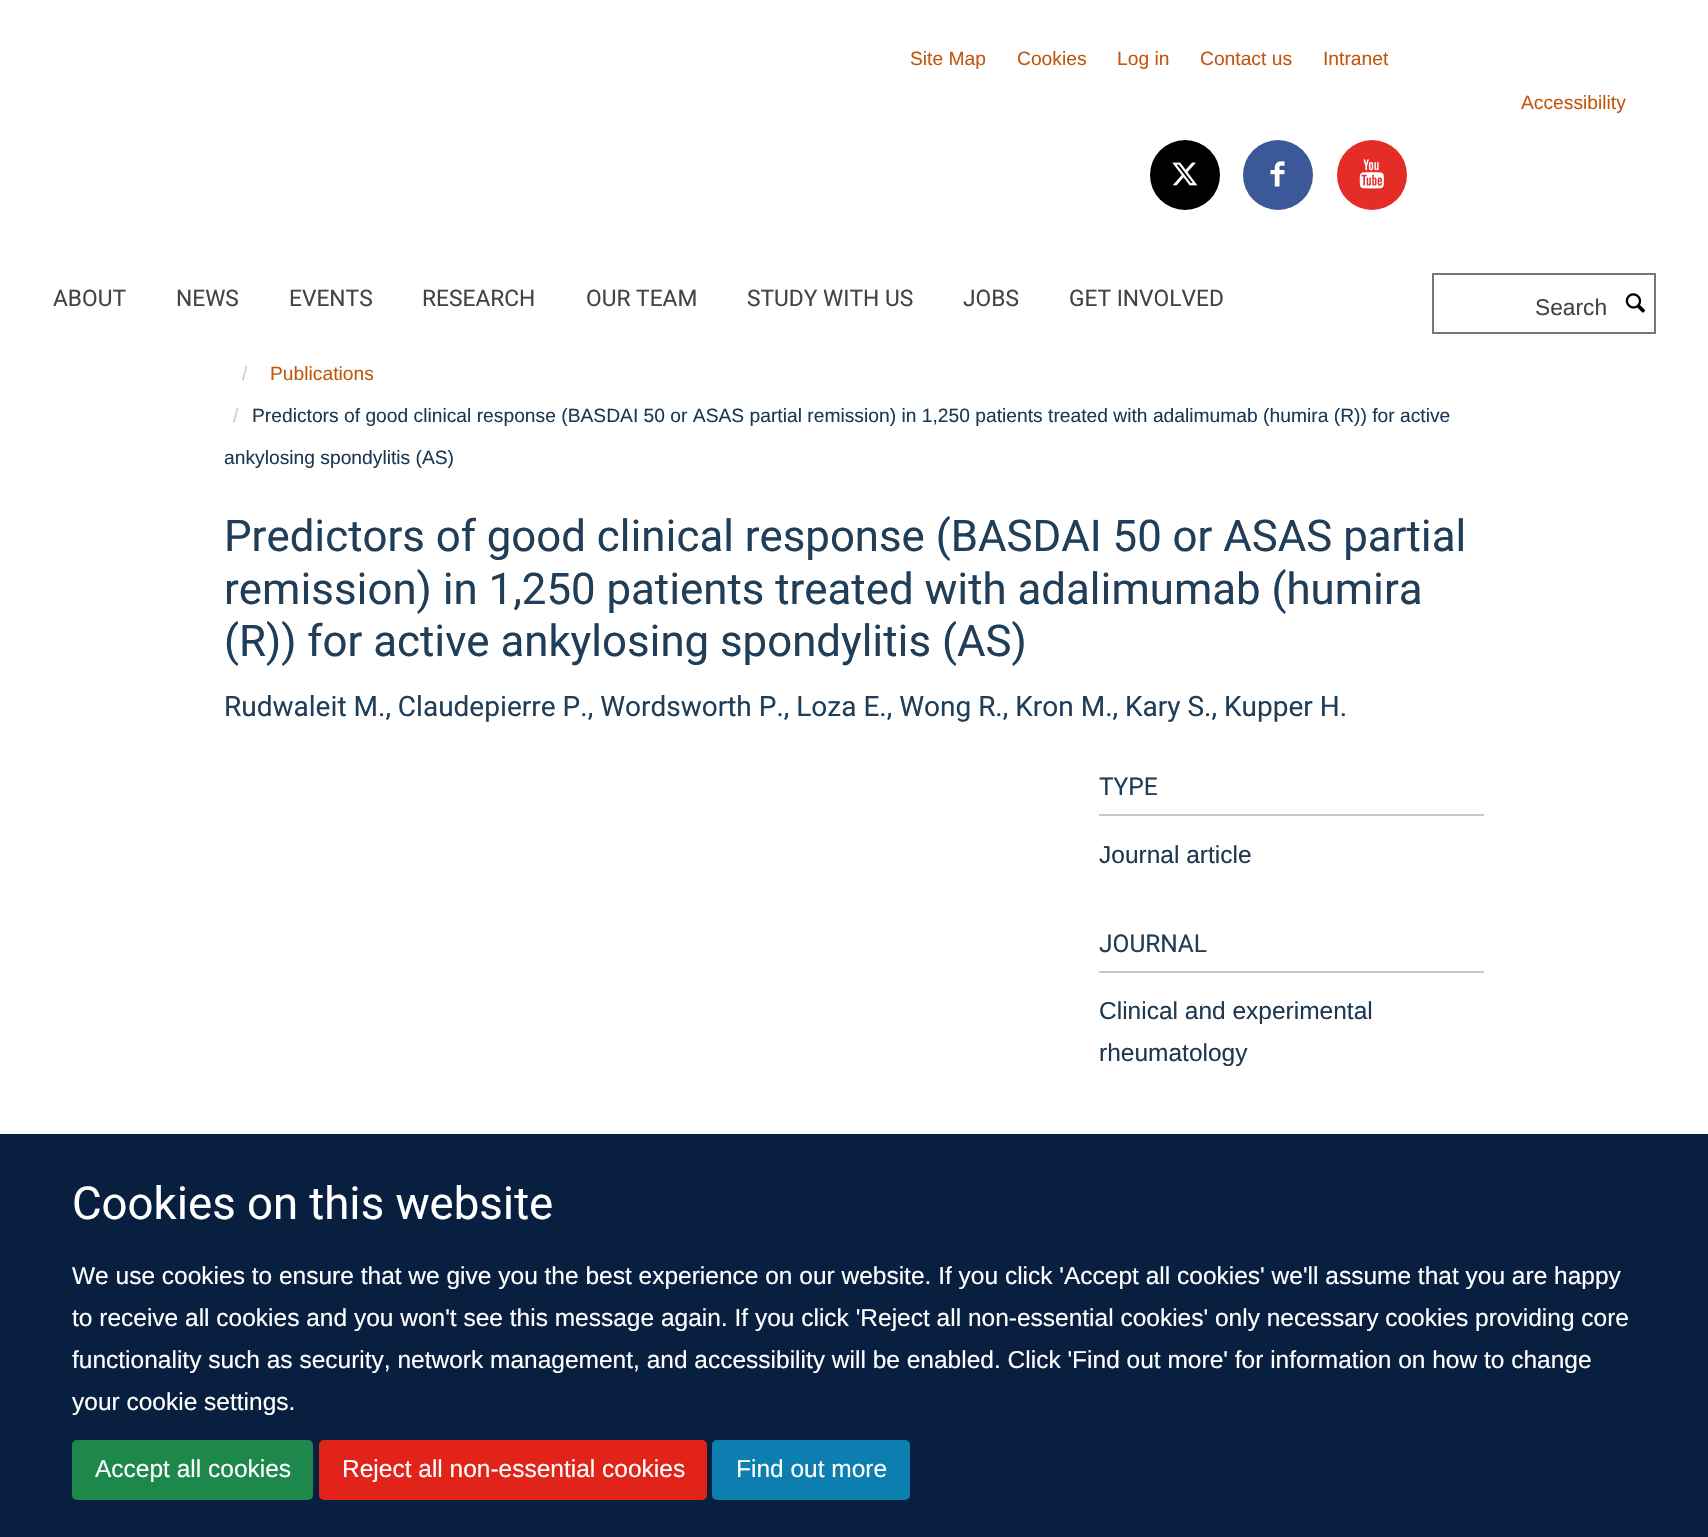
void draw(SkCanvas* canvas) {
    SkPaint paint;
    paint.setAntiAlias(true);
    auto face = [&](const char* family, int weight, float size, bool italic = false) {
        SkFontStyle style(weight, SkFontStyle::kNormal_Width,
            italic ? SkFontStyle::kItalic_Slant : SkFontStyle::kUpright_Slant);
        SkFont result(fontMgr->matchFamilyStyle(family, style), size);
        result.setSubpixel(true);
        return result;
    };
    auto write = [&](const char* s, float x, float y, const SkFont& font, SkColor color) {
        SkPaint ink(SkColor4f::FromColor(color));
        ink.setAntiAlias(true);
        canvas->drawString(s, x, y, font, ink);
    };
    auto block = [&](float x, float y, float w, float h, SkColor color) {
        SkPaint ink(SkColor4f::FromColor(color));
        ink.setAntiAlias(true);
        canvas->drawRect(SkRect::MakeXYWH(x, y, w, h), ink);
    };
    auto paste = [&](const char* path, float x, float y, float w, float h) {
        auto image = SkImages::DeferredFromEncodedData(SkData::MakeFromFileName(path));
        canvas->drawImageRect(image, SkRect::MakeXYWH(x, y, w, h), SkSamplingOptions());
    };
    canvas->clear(SK_ColorWHITE);
    auto kFont1 = face("Liberation Sans", 400, 19.25f);
    write("Site Map", 910, 65, kFont1, SkColorSetRGB(193, 87, 14));
    write("Cookies", 1017, 65, kFont1, SkColorSetRGB(193, 87, 14));
    write("Log in", 1117, 65, kFont1, SkColorSetRGB(193, 87, 14));
    write("Contact us", 1200, 65, kFont1, SkColorSetRGB(193, 87, 14));
    write("Intranet", 1323, 65, kFont1, SkColorSetRGB(193, 87, 14));
    write("Accessibility", 1521, 109, kFont1, SkColorSetRGB(193, 87, 14));
    paint.setColor(SK_ColorBLACK);
    canvas->drawCircle(1185, 175, 35, paint);
    paste("pic1.png", 1172, 162, 26, 24);
    paint.setColor(SkColorSetRGB(59, 89, 152));
    canvas->drawCircle(1278, 175, 35, paint);
    paste("pic2.png", 1270, 161, 15, 26);
    paint.setColor(SkColorSetRGB(229, 45, 39));
    canvas->drawCircle(1372, 175, 35, paint);
    paste("pic3.png", 1359, 159, 25, 30);
    auto kFont2 = face("Heebo", 400, 22.75f);
    write("ABOUT", 53, 306, kFont2, SkColorSetRGB(68, 68, 68));
    write("NEWS", 176, 306, kFont2, SkColorSetRGB(68, 68, 68));
    write("EVENTS", 289, 306, kFont2, SkColorSetRGB(68, 68, 68));
    write("RESEARCH", 422, 306, kFont2, SkColorSetRGB(68, 68, 68));
    write("OUR TEAM", 586, 306, kFont2, SkColorSetRGB(68, 68, 68));
    write("STUDY WITH US", 747, 306, kFont2, SkColorSetRGB(68, 68, 68));
    write("JOBS", 963, 306, kFont2, SkColorSetRGB(68, 68, 68));
    write("GET INVOLVED", 1069, 306, kFont2, SkColorSetRGB(68, 68, 68));
    paint.setStyle(SkPaint::kStroke_Style);
    paint.setStrokeWidth(2);
    paint.setColor(SkColorSetRGB(119, 119, 119));
    canvas->drawRect(SkRect::MakeXYWH(1433, 274, 222, 59), paint);
    auto kFont3 = face("Liberation Sans", 400, 22.75f);
    write("Search", 1535, 315, kFont3, SkColorSetRGB(68, 68, 68));
    paste("pic4.png", 1625, 293, 20, 20);
    write("/", 242, 380, kFont1, SkColorSetRGB(204, 204, 204));
    write("Publications", 270, 380, kFont1, SkColorSetRGB(193, 87, 14));
    write("/", 233, 422, kFont1, SkColorSetRGB(204, 204, 204));
    write("Predictors of good clinical response (BASDAI 50 or ASAS partial remission) in 1,250 patients treated with adalimumab (humira (R)) for active", 252, 422, kFont1, SkColorSetRGB(29, 56, 80));
    write("ankylosing spondylitis (AS)", 224, 464, kFont1, SkColorSetRGB(29, 56, 80));
    auto kFont4 = face("Heebo", 400, 43.75f);
    write("Predictors of good clinical response (BASDAI 50 or ASAS partial", 224, 551, kFont4, SkColorSetRGB(32, 62, 88));
    write("remission) in 1,250 patients treated with adalimumab (humira", 224, 604, kFont4, SkColorSetRGB(32, 62, 88));
    write("(R)) for active ankylosing spondylitis (AS)", 224, 656, kFont4, SkColorSetRGB(32, 62, 88));
    auto kFont5 = face("Heebo", 400, 28);
    write("Rudwaleit M., Claudepierre P., Wordsworth P., Loza E., Wong R., Kron M., Kary S., Kupper H.", 224, 716, kFont5, SkColorSetRGB(32, 62, 88));
    block(1099, 814, 385, 2, SkColorSetRGB(198, 202, 207));
    auto kFont6 = face("Heebo", 400, 24.5f);
    write("TYPE", 1099, 795, kFont6, SkColorSetRGB(32, 62, 88));
    auto kFont7 = face("Liberation Sans", 400, 24.5f);
    write("Journal article", 1099, 863, kFont7, SkColorSetRGB(29, 56, 80));
    block(1099, 971, 385, 2, SkColorSetRGB(198, 202, 207));
    write("JOURNAL", 1099, 952, kFont6, SkColorSetRGB(32, 62, 88));
    write("Clinical and experimental", 1099, 1019, kFont7, SkColorSetRGB(29, 56, 80));
    write("rheumatology", 1099, 1061, kFont7, SkColorSetRGB(29, 56, 80));
    block(0, 1134, 1708, 403, SkColorSetRGB(9, 31, 64));
    auto kFont8 = face("Heebo", 400, 45.5f);
    write("Cookies on this website", 72, 1219, kFont8, SK_ColorWHITE);
    write("We use cookies to ensure that we give you the best experience on our website. If you click 'Accept all cookies' we'll assume that you are happy", 72, 1284, kFont7, SK_ColorWHITE);
    write("to receive all cookies and you won't see this message again. If you click 'Reject all non-essential cookies' only necessary cookies providing core", 72, 1326, kFont7, SK_ColorWHITE);
    write("functionality such as security, network management, and accessibility will be enabled. Click 'Find out more' for information on how to change", 72, 1368, kFont7, SK_ColorWHITE);
    write("your cookie settings.", 72, 1410, kFont7, SK_ColorWHITE);
    paint.setStyle(SkPaint::kFill_Style);
    paint.setColor(SkColorSetRGB(30, 135, 75));
    canvas->drawRoundRect(SkRect::MakeXYWH(73, 1441, 239, 58), 4, 4, paint);
    paint.setStyle(SkPaint::kStroke_Style);
    canvas->drawRoundRect(SkRect::MakeXYWH(73, 1441, 239, 58), 4, 4, paint);
    write("Accept all cookies", 95, 1477, kFont7, SK_ColorWHITE);
    paint.setStyle(SkPaint::kFill_Style);
    paint.setColor(SkColorSetRGB(226, 35, 26));
    canvas->drawRoundRect(SkRect::MakeXYWH(320, 1441, 386, 58), 4, 4, paint);
    paint.setStyle(SkPaint::kStroke_Style);
    canvas->drawRoundRect(SkRect::MakeXYWH(320, 1441, 386, 58), 4, 4, paint);
    write("Reject all non-essential cookies", 342, 1477, kFont7, SK_ColorWHITE);
    paint.setStyle(SkPaint::kFill_Style);
    paint.setColor(SkColorSetRGB(13, 126, 176));
    canvas->drawRoundRect(SkRect::MakeXYWH(713, 1441, 196, 58), 4, 4, paint);
    paint.setStyle(SkPaint::kStroke_Style);
    canvas->drawRoundRect(SkRect::MakeXYWH(713, 1441, 196, 58), 4, 4, paint);
    write("Find out more", 736, 1477, kFont7, SK_ColorWHITE);
}
